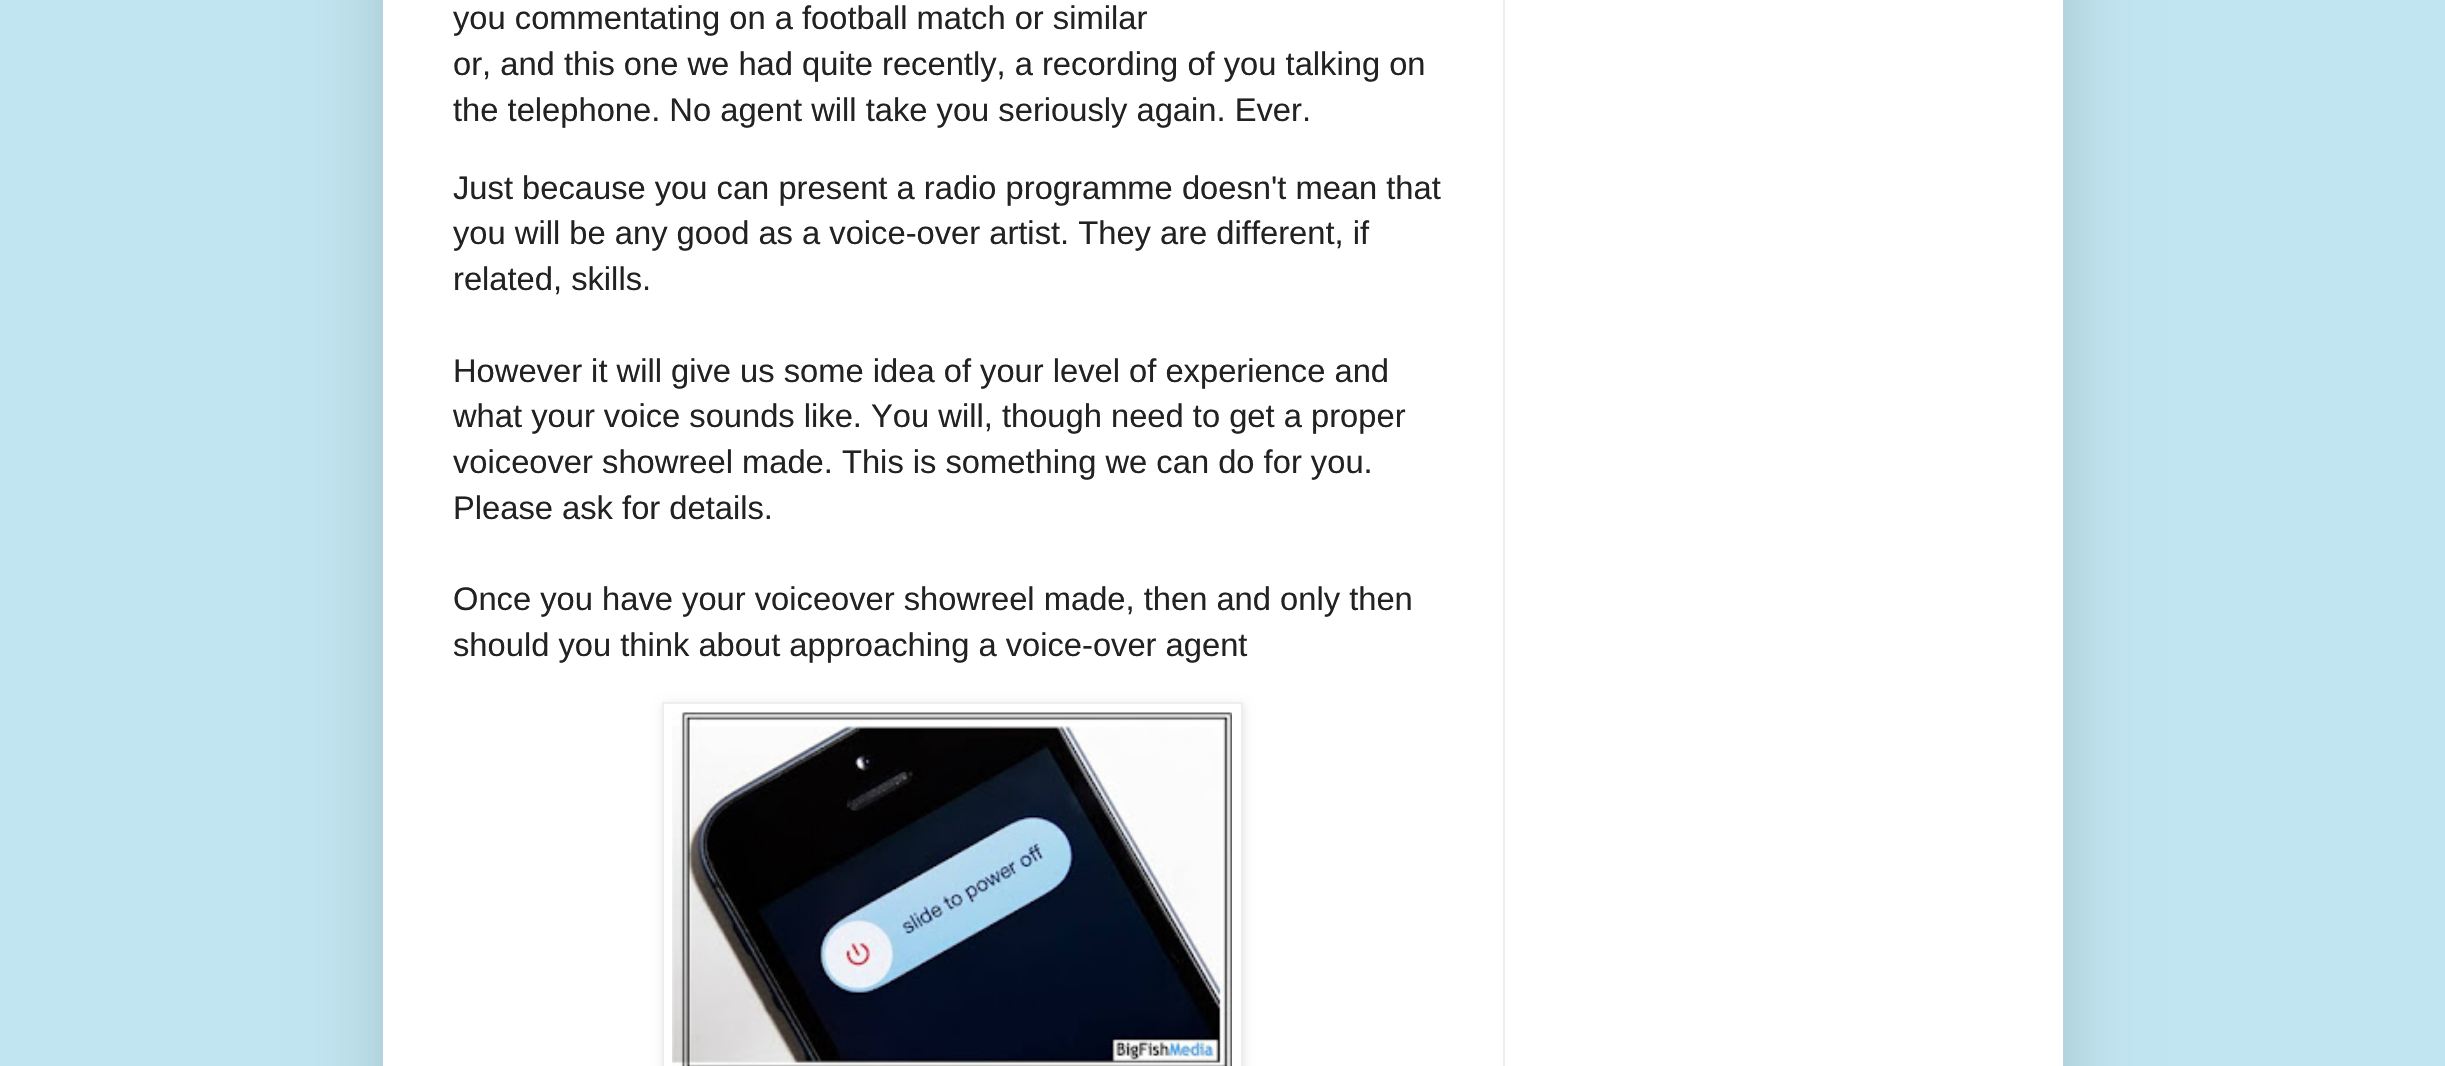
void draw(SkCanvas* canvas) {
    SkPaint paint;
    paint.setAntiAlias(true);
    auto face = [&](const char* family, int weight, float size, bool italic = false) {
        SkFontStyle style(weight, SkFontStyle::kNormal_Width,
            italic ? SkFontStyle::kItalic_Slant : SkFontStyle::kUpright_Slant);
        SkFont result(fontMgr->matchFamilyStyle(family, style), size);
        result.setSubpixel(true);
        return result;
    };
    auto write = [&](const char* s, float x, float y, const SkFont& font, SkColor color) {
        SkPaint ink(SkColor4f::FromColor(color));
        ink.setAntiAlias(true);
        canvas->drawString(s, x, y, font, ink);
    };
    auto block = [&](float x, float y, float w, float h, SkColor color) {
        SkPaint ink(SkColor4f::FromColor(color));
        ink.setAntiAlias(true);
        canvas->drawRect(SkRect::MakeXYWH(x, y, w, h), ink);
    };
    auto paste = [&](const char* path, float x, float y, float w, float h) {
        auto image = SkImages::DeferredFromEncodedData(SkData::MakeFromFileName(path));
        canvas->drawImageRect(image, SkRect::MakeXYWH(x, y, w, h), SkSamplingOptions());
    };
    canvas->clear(SkColorSetRGB(193, 229, 241));
    paint.setColor(SkColorSetARGB(38, 0, 0, 0));
    paint.setMaskFilter(SkMaskFilter::MakeBlur(kNormal_SkBlurStyle, 35));
    canvas->drawRect(SkRect::MakeXYWH(383, -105, 1680, 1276), paint);
    paint.setMaskFilter(nullptr);
    block(383, 0, 1680, 1066, SK_ColorWHITE);
    auto kFont1 = face("Liberation Sans", 400, 32.7f);
    write("you commentating on a football match or similar", 453, 29, kFont1, SkColorSetRGB(34, 34, 34));
    write("or, and this one we had quite recently, a recording of you talking on", 453, 75, kFont1, SkColorSetRGB(34, 34, 34));
    write("the telephone. No agent will take you seriously again. Ever.", 453, 121, kFont1, SkColorSetRGB(34, 34, 34));
    write("Just because you can present a radio programme doesn't mean that", 453, 199, kFont1, SkColorSetRGB(34, 34, 34));
    write("you will be any good as a voice-over artist. They are different, if", 453, 244, kFont1, SkColorSetRGB(34, 34, 34));
    write("related, skills.", 453, 290, kFont1, SkColorSetRGB(34, 34, 34));
    write("However it will give us some idea of your level of experience and", 453, 382, kFont1, SkColorSetRGB(34, 34, 34));
    write("what your voice sounds like. You will, though need to get a proper", 453, 427, kFont1, SkColorSetRGB(34, 34, 34));
    write("voiceover showreel made. This is something we can do for you.", 453, 473, kFont1, SkColorSetRGB(34, 34, 34));
    write("Please ask for details.", 453, 519, kFont1, SkColorSetRGB(34, 34, 34));
    write("Once you have your voiceover showreel made, then and only then", 453, 610, kFont1, SkColorSetRGB(34, 34, 34));
    write("should you think about approaching a voice-over agent", 453, 656, kFont1, SkColorSetRGB(34, 34, 34));
    paint.setColor(SkColorSetARGB(26, 0, 0, 0));
    paint.setMaskFilter(SkMaskFilter::MakeBlur(kNormal_SkBlurStyle, 4.5f));
    canvas->drawRect(SkRect::MakeXYWH(663, 704, 581, 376), paint);
    paint.setMaskFilter(nullptr);
    paint.setColor(SK_ColorWHITE);
    canvas->drawRect(SkRect::MakeXYWH(663, 703, 579, 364), paint);
    paint.setStyle(SkPaint::kStroke_Style);
    paint.setStrokeWidth(2);
    paint.setColor(SkColorSetRGB(238, 238, 238));
    canvas->drawRect(SkRect::MakeXYWH(663, 703, 579, 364), paint);
    paste("pic1.png", 672, 712, 560, 354);
    block(1503, 0, 2, 1066, SkColorSetRGB(238, 238, 238));
}
